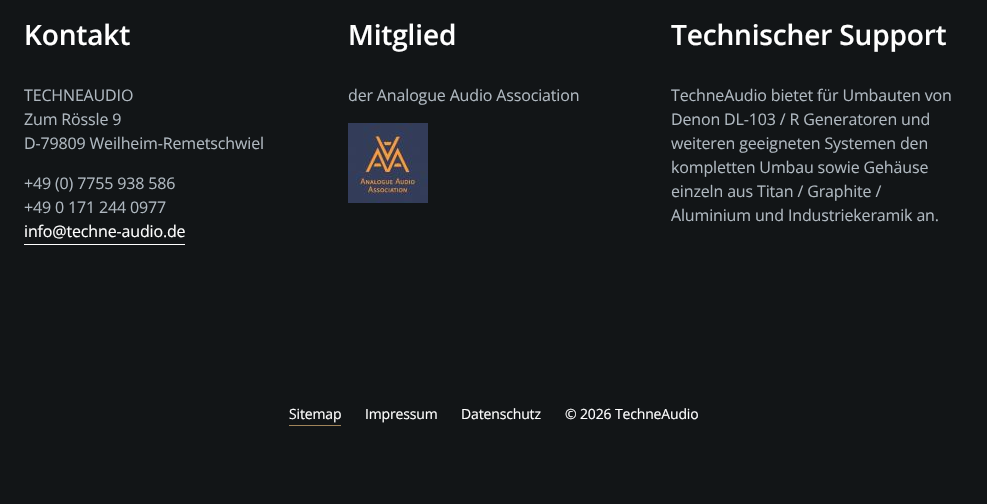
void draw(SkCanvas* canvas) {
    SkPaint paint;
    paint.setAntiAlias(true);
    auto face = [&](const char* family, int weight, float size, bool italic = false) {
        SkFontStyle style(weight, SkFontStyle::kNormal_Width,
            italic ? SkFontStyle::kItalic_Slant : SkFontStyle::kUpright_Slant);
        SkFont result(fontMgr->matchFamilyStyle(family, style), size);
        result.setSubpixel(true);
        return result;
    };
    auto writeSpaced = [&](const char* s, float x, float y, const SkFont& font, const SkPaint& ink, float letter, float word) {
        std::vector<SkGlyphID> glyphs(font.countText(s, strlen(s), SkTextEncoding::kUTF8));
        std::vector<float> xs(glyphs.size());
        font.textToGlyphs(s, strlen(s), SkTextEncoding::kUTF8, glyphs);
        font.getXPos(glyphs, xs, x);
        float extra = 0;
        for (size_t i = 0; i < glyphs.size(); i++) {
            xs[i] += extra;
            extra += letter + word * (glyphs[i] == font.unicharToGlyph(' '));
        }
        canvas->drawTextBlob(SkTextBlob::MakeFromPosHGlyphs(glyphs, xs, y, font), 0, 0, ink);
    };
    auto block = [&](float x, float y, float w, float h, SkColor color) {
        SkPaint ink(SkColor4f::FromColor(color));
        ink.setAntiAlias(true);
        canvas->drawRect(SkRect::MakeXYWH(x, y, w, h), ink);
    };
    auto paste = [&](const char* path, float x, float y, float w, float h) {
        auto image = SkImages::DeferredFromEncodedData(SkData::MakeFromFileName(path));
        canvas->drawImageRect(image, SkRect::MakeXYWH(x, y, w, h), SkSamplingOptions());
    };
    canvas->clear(SkColorSetRGB(18, 21, 23));
    auto kFont1 = face("Open Sans", 600, 28);
    paint.setColor(SK_ColorWHITE);
    writeSpaced("Kontakt", 24, 45, kFont1, paint, -0.15f, 0);
    auto kFont2 = face("Open Sans", 400, 16);
    paint.setColor(SkColorSetRGB(175, 184, 192));
    writeSpaced("TECHNEAUDIO", 24, 101, kFont2, paint, -0.15f, 0);
    writeSpaced("Zum Rössle 9", 24, 125, kFont2, paint, -0.15f, 0);
    writeSpaced("D-79809 Weilheim-Remetschwiel", 24, 149, kFont2, paint, -0.15f, 0);
    writeSpaced("+49 (0) 7755 938 586", 24, 189, kFont2, paint, -0.15f, 0);
    writeSpaced("+49 0 171 244 0977", 24, 213, kFont2, paint, -0.15f, 0);
    paint.setColor(SK_ColorWHITE);
    writeSpaced("info@techne-audio.de", 24, 237, kFont2, paint, -0.15f, 0);
    block(24, 244, 161, 1, SK_ColorWHITE);
    writeSpaced("Mitglied", 348, 45, kFont1, paint, -0.15f, 0);
    paint.setColor(SkColorSetRGB(175, 184, 192));
    writeSpaced("der Analogue Audio Association", 348, 101, kFont2, paint, -0.15f, 0);
    paste("pic1.png", 348, 123, 80, 80);
    paint.setColor(SK_ColorWHITE);
    writeSpaced("Technischer Support", 671, 45, kFont1, paint, -0.15f, 0);
    paint.setColor(SkColorSetRGB(175, 184, 192));
    writeSpaced("TechneAudio bietet für Umbauten von", 671, 101, kFont2, paint, -0.15f, 0);
    writeSpaced("Denon DL-103 / R Generatoren und", 671, 125, kFont2, paint, -0.15f, 0);
    writeSpaced("weiteren geeigneten Systemen den", 671, 149, kFont2, paint, -0.15f, 0);
    writeSpaced("kompletten Umbau sowie Gehäuse", 671, 173, kFont2, paint, -0.15f, 0);
    writeSpaced("einzeln aus Titan / Graphite /", 671, 197, kFont2, paint, -0.15f, 0);
    writeSpaced("Aluminium und Industriekeramik an.", 671, 221, kFont2, paint, -0.15f, 0);
    auto kFont3 = face("Open Sans", 400, 14);
    paint.setColor(SK_ColorWHITE);
    writeSpaced("Sitemap", 289, 419, kFont3, paint, -0.15f, 0);
    block(289, 425, 52, 1, SkColorSetRGB(160, 132, 90));
    writeSpaced("Impressum", 365, 419, kFont3, paint, -0.15f, 0);
    writeSpaced("Datenschutz", 461, 419, kFont3, paint, -0.15f, 0);
    writeSpaced("© 2026 TechneAudio", 565, 419, kFont3, paint, -0.15f, 0);
}
